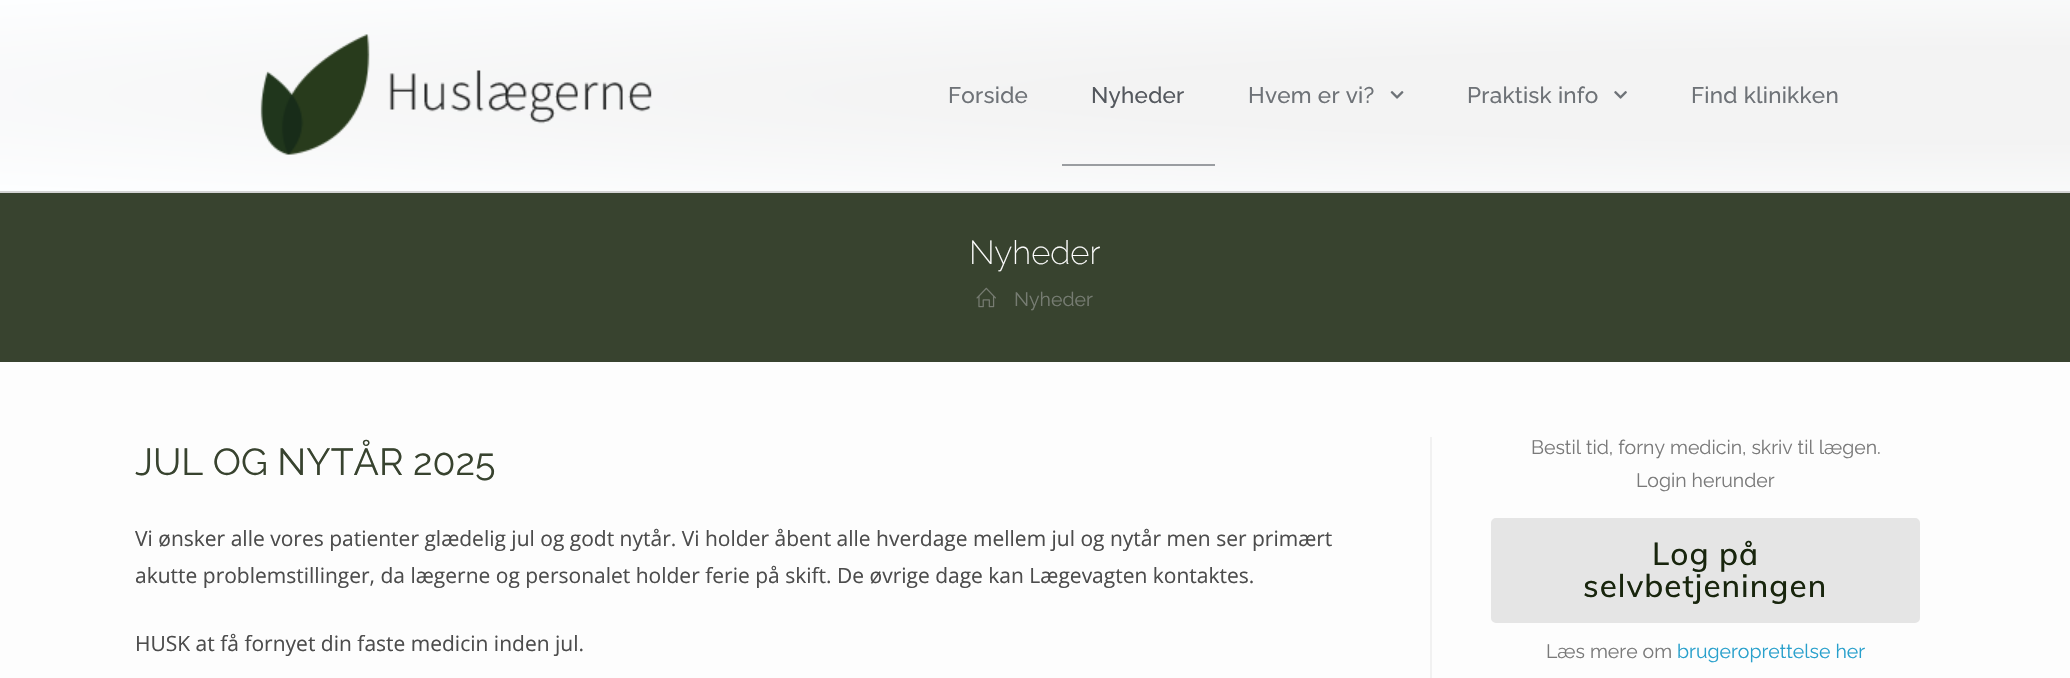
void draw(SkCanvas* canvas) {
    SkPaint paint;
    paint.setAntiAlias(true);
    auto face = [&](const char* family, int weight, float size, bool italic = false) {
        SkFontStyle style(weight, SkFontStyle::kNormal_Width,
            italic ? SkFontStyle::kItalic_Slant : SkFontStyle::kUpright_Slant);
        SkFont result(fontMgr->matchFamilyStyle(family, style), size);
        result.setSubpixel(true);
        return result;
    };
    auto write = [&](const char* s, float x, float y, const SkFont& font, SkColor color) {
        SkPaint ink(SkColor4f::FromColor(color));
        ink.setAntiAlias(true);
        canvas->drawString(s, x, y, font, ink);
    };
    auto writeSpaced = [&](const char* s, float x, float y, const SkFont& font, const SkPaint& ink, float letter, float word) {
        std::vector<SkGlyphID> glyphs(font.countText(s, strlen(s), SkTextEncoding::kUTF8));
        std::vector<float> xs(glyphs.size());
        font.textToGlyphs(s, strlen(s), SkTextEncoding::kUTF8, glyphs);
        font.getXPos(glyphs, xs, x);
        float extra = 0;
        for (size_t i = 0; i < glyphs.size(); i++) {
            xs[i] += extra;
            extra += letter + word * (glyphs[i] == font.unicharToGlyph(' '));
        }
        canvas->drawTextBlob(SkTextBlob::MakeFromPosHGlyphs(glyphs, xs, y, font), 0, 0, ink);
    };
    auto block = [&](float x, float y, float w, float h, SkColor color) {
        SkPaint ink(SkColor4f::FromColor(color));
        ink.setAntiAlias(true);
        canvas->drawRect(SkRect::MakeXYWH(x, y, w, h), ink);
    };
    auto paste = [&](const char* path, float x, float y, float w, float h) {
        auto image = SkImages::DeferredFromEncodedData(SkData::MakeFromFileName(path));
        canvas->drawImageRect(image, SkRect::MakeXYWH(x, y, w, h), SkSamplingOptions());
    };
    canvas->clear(SkColorSetRGB(253, 253, 253));
    {
        const SkColor colors[] = {SkColorSetRGB(243, 243, 243), SkColorSetRGB(253, 254, 255)};
        const float stops[] = {0.34f, 1};
        SkMatrix m = SkMatrix::Translate(2070, 95).preScale(2927, 135);
        paint.setShader(SkGradientShader::MakeRadial({0, 0}, 1, colors, stops, 2, SkTileMode::kClamp, 0, &m));
        paint.setAlpha(255);
    }
    canvas->drawRect(SkRect::MakeXYWH(0, 0, 2070, 191), paint);
    block(0, 191, 2070, 2, SkColorSetRGB(211, 211, 211));
    paste("pic1.png", 260, 34, 392, 121);
    auto kFont1 = face("Raleway", 500, 22.5f);
    paint.setShader(nullptr);
    paint.setColor(SkColorSetRGB(110, 114, 119));
    writeSpaced("Forside", 948, 103, kFont1, paint, 0.25f, 0);
    paint.setColor(SkColorSetRGB(84, 88, 94));
    writeSpaced("Nyheder", 1091, 103, kFont1, paint, 0.25f, 0);
    block(1062, 164, 153, 2, SkColorSetRGB(154, 157, 161));
    paint.setColor(SkColorSetRGB(110, 114, 119));
    writeSpaced("Hvem er vi?", 1248, 103, kFont1, paint, 0.25f, 0);
    paste("pic2.png", 1390, 91, 14, 8);
    writeSpaced("Praktisk info", 1467, 103, kFont1, paint, 0.25f, 0);
    paste("pic3.png", 1614, 91, 13, 8);
    writeSpaced("Find klinikken", 1691, 103, kFont1, paint, 0.25f, 0);
    block(0, 193, 2070, 169, SkColorSetRGB(56, 67, 47));
    auto kFont2 = face("Raleway", 200, 33);
    write("Nyheder", 969, 264, kFont2, SK_ColorWHITE);
    paste("pic4.png", 976, 287, 20, 21);
    auto kFont3 = face("Raleway", 400, 19.5f);
    write("Nyheder", 1014, 306, kFont3, SkColorSetRGB(118, 124, 114));
    block(1430, 437, 2, 241, SkColorSetRGB(241, 241, 241));
    auto kFont4 = face("Raleway", 400, 37.5f);
    write("JUL OG NYTÅR 2025", 135, 475, kFont4, SkColorSetRGB(56, 67, 47));
    auto kFont5 = face("Open Sans", 400, 21);
    write("Vi ønsker alle vores patienter glædelig jul og godt nytår. Vi holder åbent alle hverdage mellem jul og nytår men ser primært", 135, 546, kFont5, SkColorSetRGB(76, 76, 76));
    write("akutte problemstillinger, da lægerne og personalet holder ferie på skift. De øvrige dage kan Lægevagten kontaktes.", 135, 583, kFont5, SkColorSetRGB(76, 76, 76));
    write("HUSK at få fornyet din faste medicin inden jul.", 135, 651, kFont5, SkColorSetRGB(76, 76, 76));
    write("Bestil tid, forny medicin, skriv til lægen.", 1531, 454, kFont3, SkColorSetRGB(122, 122, 122));
    write("Login herunder", 1636, 487, kFont3, SkColorSetRGB(122, 122, 122));
    paint.setColor(SkColorSetRGB(229, 229, 229));
    canvas->drawRoundRect(SkRect::MakeXYWH(1492.5f, 519.5f, 426, 102), 3.5f, 3.5f, paint);
    paint.setStyle(SkPaint::kStroke_Style);
    paint.setStrokeWidth(3);
    canvas->drawRoundRect(SkRect::MakeXYWH(1492.5f, 519.5f, 426, 102), 3.5f, 3.5f, paint);
    auto kFont6 = face("Muli", 500, 31.5f);
    paint.setStyle(SkPaint::kFill_Style);
    paint.setColor(SkColorSetRGB(24, 37, 13));
    writeSpaced("Log på", 1652, 565, kFont6, paint, 1, 0);
    writeSpaced("selvbetjeningen", 1583, 597, kFont6, paint, 1, 0);
    write("Læs mere om", 1546, 658, kFont3, SkColorSetRGB(122, 122, 122));
    write("brugeroprettelse her", 1677, 658, kFont3, SkColorSetRGB(40, 160, 204));
}
